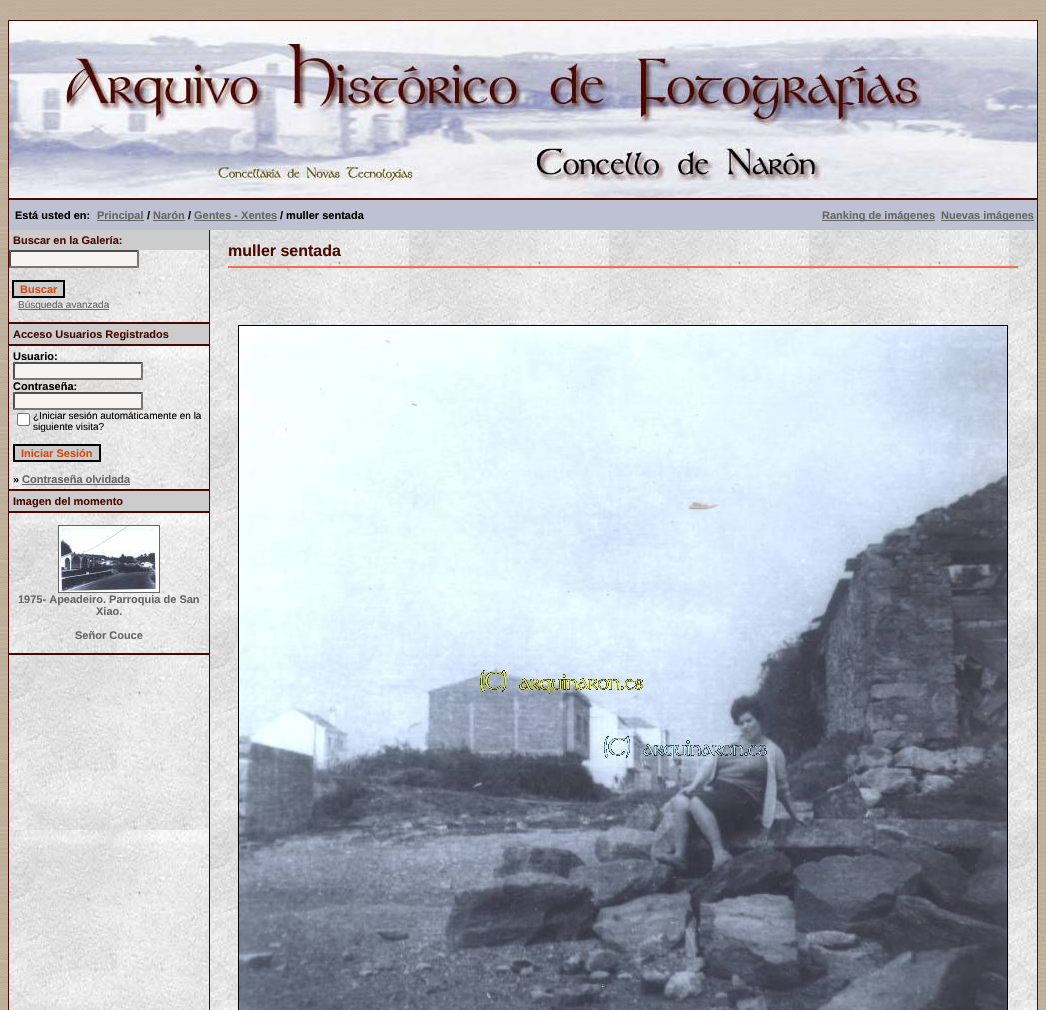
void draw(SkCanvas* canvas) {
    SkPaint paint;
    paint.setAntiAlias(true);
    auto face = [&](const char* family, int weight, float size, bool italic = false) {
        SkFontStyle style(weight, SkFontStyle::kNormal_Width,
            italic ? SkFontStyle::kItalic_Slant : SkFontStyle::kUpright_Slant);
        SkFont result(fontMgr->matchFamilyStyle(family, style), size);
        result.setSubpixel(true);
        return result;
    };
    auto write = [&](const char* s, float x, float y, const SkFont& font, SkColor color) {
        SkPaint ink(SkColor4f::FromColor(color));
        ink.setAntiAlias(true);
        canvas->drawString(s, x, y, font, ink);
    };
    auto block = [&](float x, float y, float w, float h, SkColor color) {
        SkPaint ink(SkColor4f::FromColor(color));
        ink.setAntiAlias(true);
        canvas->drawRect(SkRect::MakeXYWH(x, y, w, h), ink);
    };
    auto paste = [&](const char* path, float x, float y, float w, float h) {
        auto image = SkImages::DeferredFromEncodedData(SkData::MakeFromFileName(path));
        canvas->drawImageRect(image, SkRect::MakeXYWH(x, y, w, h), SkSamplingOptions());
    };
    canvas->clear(SK_ColorWHITE);
    paste("pic1.png", 0, 0, 1046, 1010);
    paste("pic2.png", 9, 21, 1028, 177);
    paint.setStyle(SkPaint::kStroke_Style);
    paint.setStrokeWidth(1);
    paint.setColor(SkColorSetRGB(74, 9, 0));
    canvas->drawRect(SkRect::MakeXYWH(8.5f, 20.5f, 1029, 178), paint);
    paste("pic3.png", 210, 230, 827, 780);
    canvas->drawRect(SkRect::MakeXYWH(8.5f, 199.5f, 1029, 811), paint);
    block(9, 200, 1028, 30, SkColorSetRGB(190, 193, 210));
    auto kFont1 = face("Liberation Sans", 700, 11);
    write("Está usted en:", 15, 219, kFont1, SK_ColorBLACK);
    block(97, 220, 47, 1, SkColorSetRGB(102, 102, 102));
    write("Principal", 97, 219, kFont1, SkColorSetRGB(102, 102, 102));
    write("/", 147, 219, kFont1, SK_ColorBLACK);
    write("Narón", 153, 219, kFont1, SkColorSetRGB(102, 102, 102));
    block(153, 220, 32, 1, SkColorSetRGB(102, 102, 102));
    write("/", 188, 219, kFont1, SK_ColorBLACK);
    write("Gentes - Xentes", 194, 219, kFont1, SkColorSetRGB(102, 102, 102));
    block(194, 220, 83, 1, SkColorSetRGB(102, 102, 102));
    write("/ muller sentada", 280, 219, kFont1, SK_ColorBLACK);
    block(822, 220, 113, 1, SkColorSetRGB(102, 102, 102));
    write("Ranking de imágenes", 822, 219, kFont1, SkColorSetRGB(102, 102, 102));
    block(941, 220, 93, 1, SkColorSetRGB(102, 102, 102));
    write("Nuevas imágenes", 941, 219, kFont1, SkColorSetRGB(102, 102, 102));
    paste("pic4.png", 9, 250, 200, 760);
    block(9, 230, 200, 20, SkColorSetRGB(204, 204, 204));
    write("Buscar en la Galería:", 13, 244, kFont1, SkColorSetRGB(73, 11, 0));
    block(9, 250, 130, 18, SkColorSetRGB(245, 244, 243));
    paint.setStyle(SkPaint::kFill_Style);
    paint.setColor(SkColorSetRGB(79, 79, 79));
    canvas->drawPath(SkPathBuilder().moveTo(9, 250).lineTo(139, 250).lineTo(137, 252).lineTo(11, 252).close().detach(), paint);
    paint.setColor(SkColorSetRGB(118, 118, 118));
    canvas->drawPath(SkPathBuilder().moveTo(139, 250).lineTo(139, 268).lineTo(137, 266).lineTo(137, 252).close().detach(), paint);
    canvas->drawPath(SkPathBuilder().moveTo(139, 268).lineTo(9, 268).lineTo(11, 266).lineTo(137, 266).close().detach(), paint);
    paint.setColor(SkColorSetRGB(79, 79, 79));
    canvas->drawPath(SkPathBuilder().moveTo(9, 268).lineTo(9, 250).lineTo(11, 252).lineTo(11, 266).close().detach(), paint);
    paint.setColor(SkColorSetRGB(204, 204, 204));
    canvas->drawRect(SkRect::MakeXYWH(13, 281, 51, 16), paint);
    paint.setStyle(SkPaint::kStroke_Style);
    paint.setStrokeWidth(2);
    paint.setColor(SK_ColorBLACK);
    canvas->drawRect(SkRect::MakeXYWH(13, 281, 51, 16), paint);
    write("Buscar", 20, 293, kFont1, SkColorSetRGB(218, 74, 18));
    block(18, 309, 91, 1, SkColorSetRGB(102, 102, 102));
    auto kFont2 = face("Liberation Sans", 400, 10);
    write("Búsqueda avanzada", 18, 308, kFont2, SkColorSetRGB(102, 102, 102));
    block(9, 322, 200, 2, SkColorSetRGB(74, 9, 0));
    block(9, 324, 200, 20, SkColorSetRGB(204, 204, 204));
    write("Acceso Usuarios Registrados", 13, 338, kFont1, SkColorSetRGB(73, 11, 0));
    block(9, 344, 200, 2, SkColorSetRGB(74, 9, 0));
    paste("pic5.png", 9, 346, 200, 143);
    write("Usuario:", 13, 360, kFont1, SK_ColorBLACK);
    block(13, 362, 130, 18, SkColorSetRGB(245, 244, 243));
    paint.setStyle(SkPaint::kFill_Style);
    paint.setColor(SkColorSetRGB(79, 79, 79));
    canvas->drawPath(SkPathBuilder().moveTo(13, 362).lineTo(143, 362).lineTo(141, 364).lineTo(15, 364).close().detach(), paint);
    paint.setColor(SkColorSetRGB(118, 118, 118));
    canvas->drawPath(SkPathBuilder().moveTo(143, 362).lineTo(143, 380).lineTo(141, 378).lineTo(141, 364).close().detach(), paint);
    canvas->drawPath(SkPathBuilder().moveTo(143, 380).lineTo(13, 380).lineTo(15, 378).lineTo(141, 378).close().detach(), paint);
    paint.setColor(SkColorSetRGB(79, 79, 79));
    canvas->drawPath(SkPathBuilder().moveTo(13, 380).lineTo(13, 362).lineTo(15, 364).lineTo(15, 378).close().detach(), paint);
    write("Contraseña:", 13, 390, kFont1, SK_ColorBLACK);
    block(13, 392, 130, 18, SkColorSetRGB(245, 244, 243));
    canvas->drawPath(SkPathBuilder().moveTo(13, 392).lineTo(143, 392).lineTo(141, 394).lineTo(15, 394).close().detach(), paint);
    paint.setColor(SkColorSetRGB(118, 118, 118));
    canvas->drawPath(SkPathBuilder().moveTo(143, 392).lineTo(143, 410).lineTo(141, 408).lineTo(141, 394).close().detach(), paint);
    canvas->drawPath(SkPathBuilder().moveTo(143, 410).lineTo(13, 410).lineTo(15, 408).lineTo(141, 408).close().detach(), paint);
    paint.setColor(SkColorSetRGB(79, 79, 79));
    canvas->drawPath(SkPathBuilder().moveTo(13, 410).lineTo(13, 392).lineTo(15, 394).lineTo(15, 408).close().detach(), paint);
    paint.setColor(SK_ColorWHITE);
    canvas->drawRoundRect(SkRect::MakeXYWH(17.5f, 413.5f, 12, 12), 1.5f, 1.5f, paint);
    paint.setStyle(SkPaint::kStroke_Style);
    paint.setStrokeWidth(1);
    paint.setColor(SkColorSetRGB(118, 118, 118));
    canvas->drawRoundRect(SkRect::MakeXYWH(17.5f, 413.5f, 12, 12), 1.5f, 1.5f, paint);
    write("¿Iniciar sesión automáticamente en la", 33, 419, kFont2, SK_ColorBLACK);
    write("siguiente visita?", 33, 430, kFont2, SK_ColorBLACK);
    paint.setStyle(SkPaint::kFill_Style);
    paint.setColor(SkColorSetRGB(204, 204, 204));
    canvas->drawRect(SkRect::MakeXYWH(14, 445, 86, 16), paint);
    paint.setStyle(SkPaint::kStroke_Style);
    paint.setStrokeWidth(2);
    paint.setColor(SK_ColorBLACK);
    canvas->drawRect(SkRect::MakeXYWH(14, 445, 86, 16), paint);
    write("Iniciar Sesión", 21, 457, kFont1, SkColorSetRGB(218, 74, 18));
    write("»", 13, 483, kFont1, SK_ColorBLACK);
    write("Contraseña olvidada", 22, 483, kFont1, SkColorSetRGB(102, 102, 102));
    block(22, 484, 108, 1, SkColorSetRGB(102, 102, 102));
    block(9, 489, 200, 2, SkColorSetRGB(74, 9, 0));
    block(9, 491, 200, 20, SkColorSetRGB(204, 204, 204));
    write("Imagen del momento", 13, 505, kFont1, SkColorSetRGB(73, 11, 0));
    block(9, 511, 200, 2, SkColorSetRGB(74, 9, 0));
    paste("pic6.png", 9, 513, 200, 140);
    paint.setStrokeWidth(1);
    paint.setColor(SkColorSetRGB(102, 102, 102));
    canvas->drawRect(SkRect::MakeXYWH(58.5f, 525.5f, 101, 67), paint);
    paste("pic7.png", 59, 526, 100, 66);
    write("1975- Apeadeiro. Parroquia de San", 18, 603, kFont1, SkColorSetRGB(102, 102, 102));
    write("Xiao.", 96, 615, kFont1, SkColorSetRGB(102, 102, 102));
    write("Señor Couce", 75, 639, kFont1, SkColorSetRGB(102, 102, 102));
    block(9, 653, 200, 2, SkColorSetRGB(74, 9, 0));
    block(209, 230, 1, 780, SkColorSetRGB(74, 9, 0));
    auto kFont3 = face("Liberation Sans", 700, 16);
    write("muller sentada", 228, 256, kFont3, SkColorSetRGB(73, 11, 0));
    block(229, 267, 788, 1, SkColorSetRGB(243, 108, 79));
    block(228, 266, 790, 1, SkColorSetRGB(243, 108, 79));
    block(1017, 266, 1, 2, SkColorSetRGB(243, 108, 79));
    block(228, 266, 1, 2, SkColorSetRGB(243, 108, 79));
    paint.setColor(SK_ColorBLACK);
    canvas->drawRect(SkRect::MakeXYWH(238.5f, 325.5f, 769, 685), paint);
    paste("pic8.png", 239, 326, 768, 684);
}
